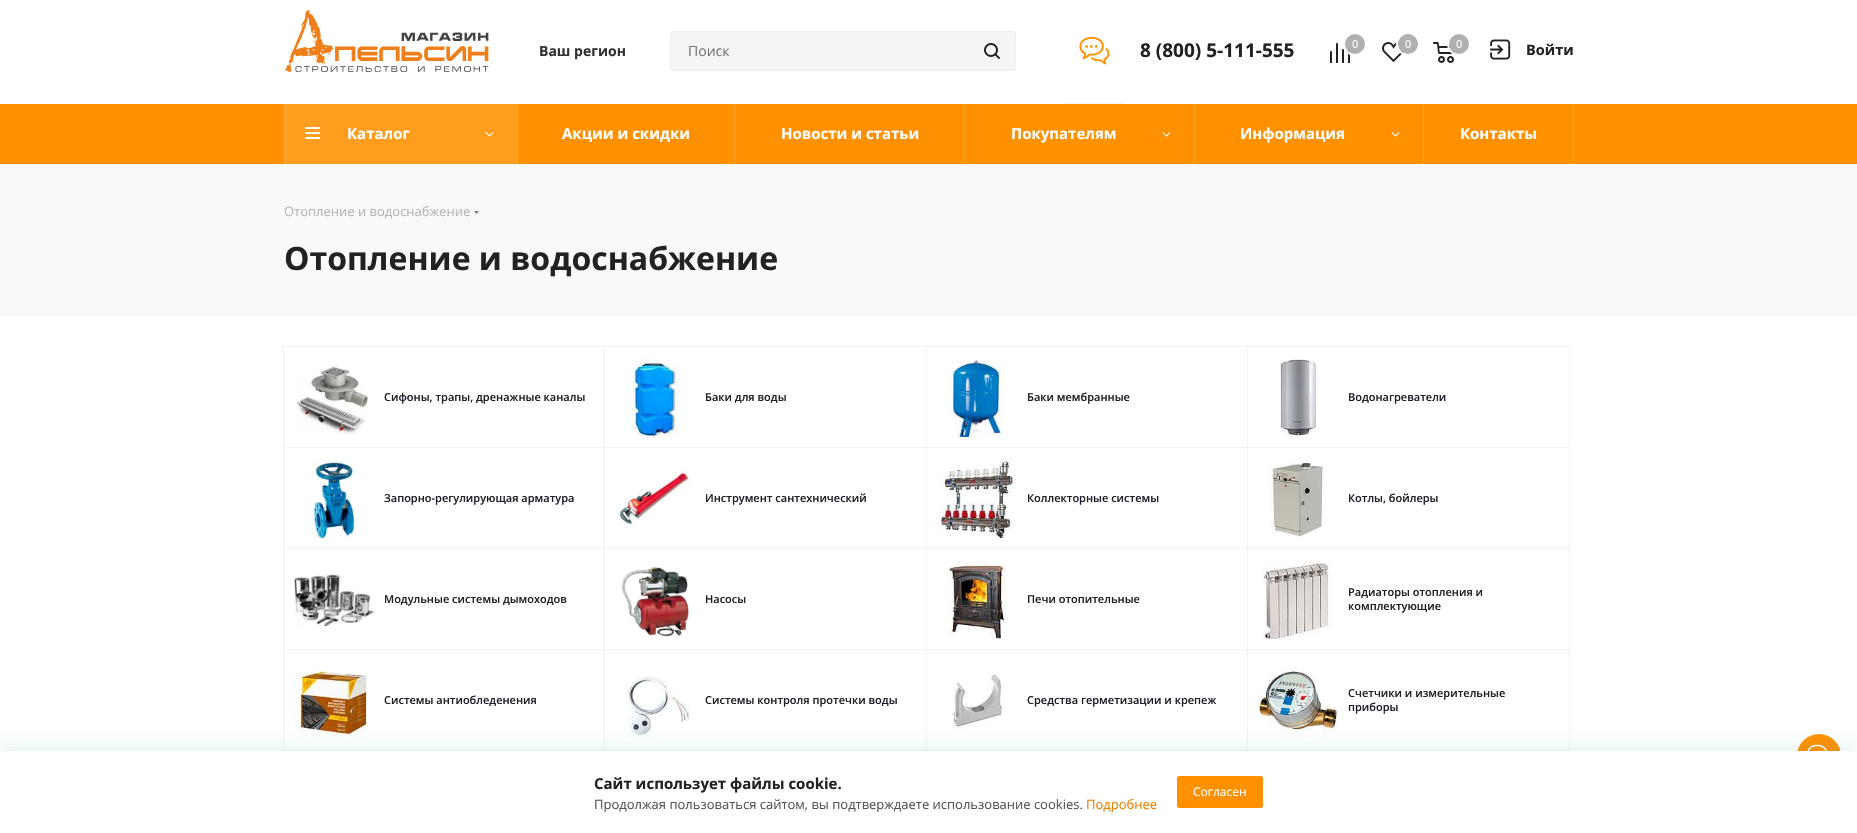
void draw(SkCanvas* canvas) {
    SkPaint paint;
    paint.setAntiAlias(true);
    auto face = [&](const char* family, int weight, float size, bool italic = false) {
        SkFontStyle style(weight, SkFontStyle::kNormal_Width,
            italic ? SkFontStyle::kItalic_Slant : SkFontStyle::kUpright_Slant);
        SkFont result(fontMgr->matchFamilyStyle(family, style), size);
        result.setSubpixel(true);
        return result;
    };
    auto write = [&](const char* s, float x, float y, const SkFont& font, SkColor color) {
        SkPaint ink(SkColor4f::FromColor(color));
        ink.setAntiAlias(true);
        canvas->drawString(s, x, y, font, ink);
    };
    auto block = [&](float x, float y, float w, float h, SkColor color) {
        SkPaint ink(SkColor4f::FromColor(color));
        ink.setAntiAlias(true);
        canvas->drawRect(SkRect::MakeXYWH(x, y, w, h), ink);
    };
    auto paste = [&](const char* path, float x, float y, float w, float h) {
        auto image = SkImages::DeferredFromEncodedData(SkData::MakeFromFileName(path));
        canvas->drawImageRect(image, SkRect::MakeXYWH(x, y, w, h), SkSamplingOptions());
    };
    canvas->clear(SK_ColorWHITE);
    paste("pic1.png", 285, 10, 204, 62);
    auto kFont1 = face("Open Sans", 700, 14);
    write("Ваш регион", 539, 56, kFont1, SkColorSetRGB(51, 51, 51));
    paint.setColor(SkColorSetRGB(245, 245, 245));
    canvas->drawRoundRect(SkRect::MakeXYWH(670.5f, 31.5f, 345, 39), 2.5f, 2.5f, paint);
    paint.setStyle(SkPaint::kStroke_Style);
    paint.setStrokeWidth(1);
    paint.setColor(SkColorSetRGB(238, 238, 238));
    canvas->drawRoundRect(SkRect::MakeXYWH(670.5f, 31.5f, 345, 39), 2.5f, 2.5f, paint);
    auto kFont2 = face("Open Sans", 400, 14);
    write("Поиск", 688, 56, kFont2, SkColorSetRGB(117, 117, 117));
    paste("pic2.png", 984, 43, 16, 16);
    block(1064, 103, 61, 1, SkColorSetRGB(246, 246, 246));
    paste("pic3.png", 1079, 36, 31, 29);
    auto kFont3 = face("Open Sans", 700, 19);
    write("8 (800) 5-111-555", 1140, 57, kFont3, SkColorSetRGB(34, 34, 34));
    paste("pic4.png", 1330, 43, 20, 20);
    paint.setStrokeWidth(2);
    paint.setColor(SK_ColorWHITE);
    canvas->drawCircle(1355, 44, 11, paint);
    paint.setStyle(SkPaint::kFill_Style);
    paint.setColor(SkColorSetRGB(176, 176, 176));
    canvas->drawCircle(1355, 44, 10, paint);
    auto kFont4 = face("Open Sans", 400, 11);
    write("0", 1352, 48, kFont4, SK_ColorWHITE);
    paste("pic5.png", 1382, 42, 22, 20);
    paint.setStyle(SkPaint::kStroke_Style);
    paint.setColor(SK_ColorWHITE);
    canvas->drawCircle(1408, 44, 11, paint);
    paint.setStyle(SkPaint::kFill_Style);
    paint.setColor(SkColorSetRGB(176, 176, 176));
    canvas->drawCircle(1408, 44, 10, paint);
    write("0", 1405, 48, kFont4, SK_ColorWHITE);
    paste("pic6.png", 1433, 42, 22, 21);
    paint.setStyle(SkPaint::kStroke_Style);
    paint.setColor(SK_ColorWHITE);
    canvas->drawCircle(1459, 44, 11, paint);
    paint.setStyle(SkPaint::kFill_Style);
    paint.setColor(SkColorSetRGB(176, 176, 176));
    canvas->drawCircle(1459, 44, 10, paint);
    write("0", 1456, 48, kFont4, SK_ColorWHITE);
    paste("pic7.png", 1490, 39, 21, 21);
    auto kFont5 = face("Open Sans", 700, 14.5f);
    write("Войти", 1526, 55, kFont5, SkColorSetRGB(34, 34, 34));
    block(0, 104, 1857, 60, SkColorSetRGB(255, 144, 0));
    block(284, 104, 1, 60, SkColorSetRGB(255, 172, 65));
    block(285, 104, 232, 60, SkColorSetRGB(255, 157, 31));
    block(517, 104, 1, 60, SkColorSetRGB(255, 172, 65));
    paste("pic8.png", 305, 127, 15, 12);
    auto kFont6 = face("Open Sans", 700, 15);
    write("Каталог", 347, 139, kFont6, SK_ColorWHITE);
    paste("pic9.png", 485, 132, 9, 5);
    block(734, 104, 1, 60, SkColorSetRGB(255, 161, 38));
    write("Акции и скидки", 562, 139, kFont6, SK_ColorWHITE);
    block(964, 104, 1, 60, SkColorSetRGB(255, 161, 38));
    write("Новости и статьи", 781, 139, kFont6, SK_ColorWHITE);
    block(1194, 104, 1, 60, SkColorSetRGB(255, 161, 38));
    write("Покупателям", 1011, 139, kFont6, SK_ColorWHITE);
    paste("pic10.png", 1162, 132, 9, 5);
    block(1423, 104, 1, 60, SkColorSetRGB(255, 161, 38));
    write("Информация", 1240, 139, kFont6, SK_ColorWHITE);
    paste("pic10.png", 1391, 132, 9, 5);
    block(1573, 104, 1, 60, SkColorSetRGB(255, 161, 38));
    write("Контакты", 1460, 139, kFont6, SK_ColorWHITE);
    block(0, 164, 1857, 152, SkColorSetRGB(249, 249, 249));
    auto kFont7 = face("Open Sans", 400, 13);
    write("Отопление и водоснабжение", 284, 216, kFont7, SkColorSetRGB(182, 181, 181));
    paste("pic11.png", 474, 211, 5, 3);
    auto kFont8 = face("Open Sans", 700, 32);
    write("Отопление и водоснабжение", 284, 270, kFont8, SkColorSetRGB(34, 34, 34));
    paint.setStyle(SkPaint::kStroke_Style);
    paint.setStrokeWidth(1);
    paint.setColor(SkColorSetRGB(242, 242, 242));
    canvas->drawRect(SkRect::MakeXYWH(283.5f, 346.5f, 321, 101), paint);
    paste("pic12.png", 294, 365, 75, 69);
    auto kFont9 = face("Open Sans", 600, 11);
    write("Сифоны, трапы, дренажные каналы", 384, 401, kFont9, SkColorSetRGB(29, 32, 41));
    canvas->drawRect(SkRect::MakeXYWH(604.5f, 346.5f, 322, 101), paint);
    paste("pic13.png", 626, 359, 53, 78);
    write("Баки для воды", 705, 401, kFont9, SkColorSetRGB(29, 32, 41));
    canvas->drawRect(SkRect::MakeXYWH(926.5f, 346.5f, 321, 101), paint);
    paste("pic14.png", 946, 359, 59, 78);
    write("Баки мембранные", 1027, 401, kFont9, SkColorSetRGB(29, 32, 41));
    canvas->drawRect(SkRect::MakeXYWH(1247.5f, 346.5f, 322, 101), paint);
    paste("pic15.png", 1279, 359, 38, 78);
    write("Водонагреватели", 1348, 401, kFont9, SkColorSetRGB(29, 32, 41));
    canvas->drawRect(SkRect::MakeXYWH(283.5f, 447.5f, 321, 101), paint);
    paste("pic16.png", 311, 460, 47, 78);
    write("Запорно-регулирующая арматура", 384, 502, kFont9, SkColorSetRGB(29, 32, 41));
    canvas->drawRect(SkRect::MakeXYWH(604.5f, 447.5f, 322, 101), paint);
    paste("pic17.png", 619, 468, 73, 57);
    write("Инструмент сантехнический", 705, 502, kFont9, SkColorSetRGB(29, 32, 41));
    canvas->drawRect(SkRect::MakeXYWH(926.5f, 447.5f, 321, 101), paint);
    paste("pic18.png", 937, 460, 80, 78);
    write("Коллекторные системы", 1027, 502, kFont9, SkColorSetRGB(29, 32, 41));
    canvas->drawRect(SkRect::MakeXYWH(1247.5f, 447.5f, 322, 101), paint);
    paste("pic19.png", 1269, 460, 57, 77);
    write("Котлы, бойлеры", 1348, 502, kFont9, SkColorSetRGB(29, 32, 41));
    canvas->drawRect(SkRect::MakeXYWH(283.5f, 548.5f, 321, 101), paint);
    paste("pic20.png", 294, 574, 80, 54);
    write("Модульные системы дымоходов", 384, 603, kFont9, SkColorSetRGB(29, 32, 41));
    canvas->drawRect(SkRect::MakeXYWH(604.5f, 548.5f, 322, 101), paint);
    paste("pic21.png", 621, 567, 68, 70);
    write("Насосы", 705, 603, kFont9, SkColorSetRGB(29, 32, 41));
    canvas->drawRect(SkRect::MakeXYWH(926.5f, 548.5f, 321, 101), paint);
    paste("pic22.png", 947, 561, 60, 78);
    write("Печи отопительные", 1027, 603, kFont9, SkColorSetRGB(29, 32, 41));
    canvas->drawRect(SkRect::MakeXYWH(1247.5f, 548.5f, 322, 101), paint);
    paste("pic23.png", 1263, 561, 69, 78);
    write("Радиаторы отопления и", 1348, 596, kFont9, SkColorSetRGB(29, 32, 41));
    write("комплектующие", 1348, 610, kFont9, SkColorSetRGB(29, 32, 41));
    canvas->drawRect(SkRect::MakeXYWH(283.5f, 649.5f, 321, 101), paint);
    paste("pic24.png", 294, 665, 75, 72);
    write("Системы антиобледенения", 384, 704, kFont9, SkColorSetRGB(29, 32, 41));
    canvas->drawRect(SkRect::MakeXYWH(604.5f, 649.5f, 322, 101), paint);
    paste("pic25.png", 625, 673, 66, 64);
    write("Системы контроля протечки воды", 705, 704, kFont9, SkColorSetRGB(29, 32, 41));
    canvas->drawRect(SkRect::MakeXYWH(926.5f, 649.5f, 321, 101), paint);
    paste("pic26.png", 953, 672, 53, 59);
    write("Средства герметизации и крепеж", 1027, 704, kFont9, SkColorSetRGB(29, 32, 41));
    canvas->drawRect(SkRect::MakeXYWH(1247.5f, 649.5f, 322, 101), paint);
    paste("pic27.png", 1258, 668, 80, 69);
    write("Счетчики и измерительные", 1348, 697, kFont9, SkColorSetRGB(29, 32, 41));
    write("приборы", 1348, 711, kFont9, SkColorSetRGB(29, 32, 41));
    canvas->drawRect(SkRect::MakeXYWH(283.5f, 750.5f, 321, 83), paint);
    canvas->drawRect(SkRect::MakeXYWH(604.5f, 750.5f, 322, 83), paint);
    canvas->drawRect(SkRect::MakeXYWH(926.5f, 750.5f, 321, 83), paint);
    canvas->drawRect(SkRect::MakeXYWH(1247.5f, 750.5f, 322, 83), paint);
    paint.setStyle(SkPaint::kFill_Style);
    paint.setColor(SkColorSetRGB(255, 144, 0));
    canvas->drawCircle(1819, 756, 22, paint);
    paste("pic28.png", 1807, 744, 20, 7);
    paint.setColor(SkColorSetARGB(20, 0, 154, 154));
    paint.setMaskFilter(SkMaskFilter::MakeBlur(kNormal_SkBlurStyle, 8));
    canvas->drawRect(SkRect::MakeXYWH(0, 743, 1857, 82), paint);
    paint.setMaskFilter(nullptr);
    block(0, 751, 1857, 82, SK_ColorWHITE);
    write("Сайт использует файлы cookie.", 594, 789, kFont6, SkColorSetRGB(34, 34, 34));
    write("Продолжая пользоваться сайтом, вы подтверждаете использование cookies.", 594, 809, kFont7, SkColorSetRGB(85, 85, 85));
    write("Подробнее", 1086, 809, kFont7, SkColorSetRGB(230, 130, 0));
    paint.setColor(SkColorSetRGB(255, 144, 0));
    canvas->drawRoundRect(SkRect::MakeXYWH(1177.5f, 776.5f, 85, 31), 1.5f, 1.5f, paint);
    paint.setStyle(SkPaint::kStroke_Style);
    canvas->drawRoundRect(SkRect::MakeXYWH(1177.5f, 776.5f, 85, 31), 1.5f, 1.5f, paint);
    auto kFont10 = face("Open Sans", 400, 12);
    write("Согласен", 1193, 796, kFont10, SK_ColorWHITE);
}
